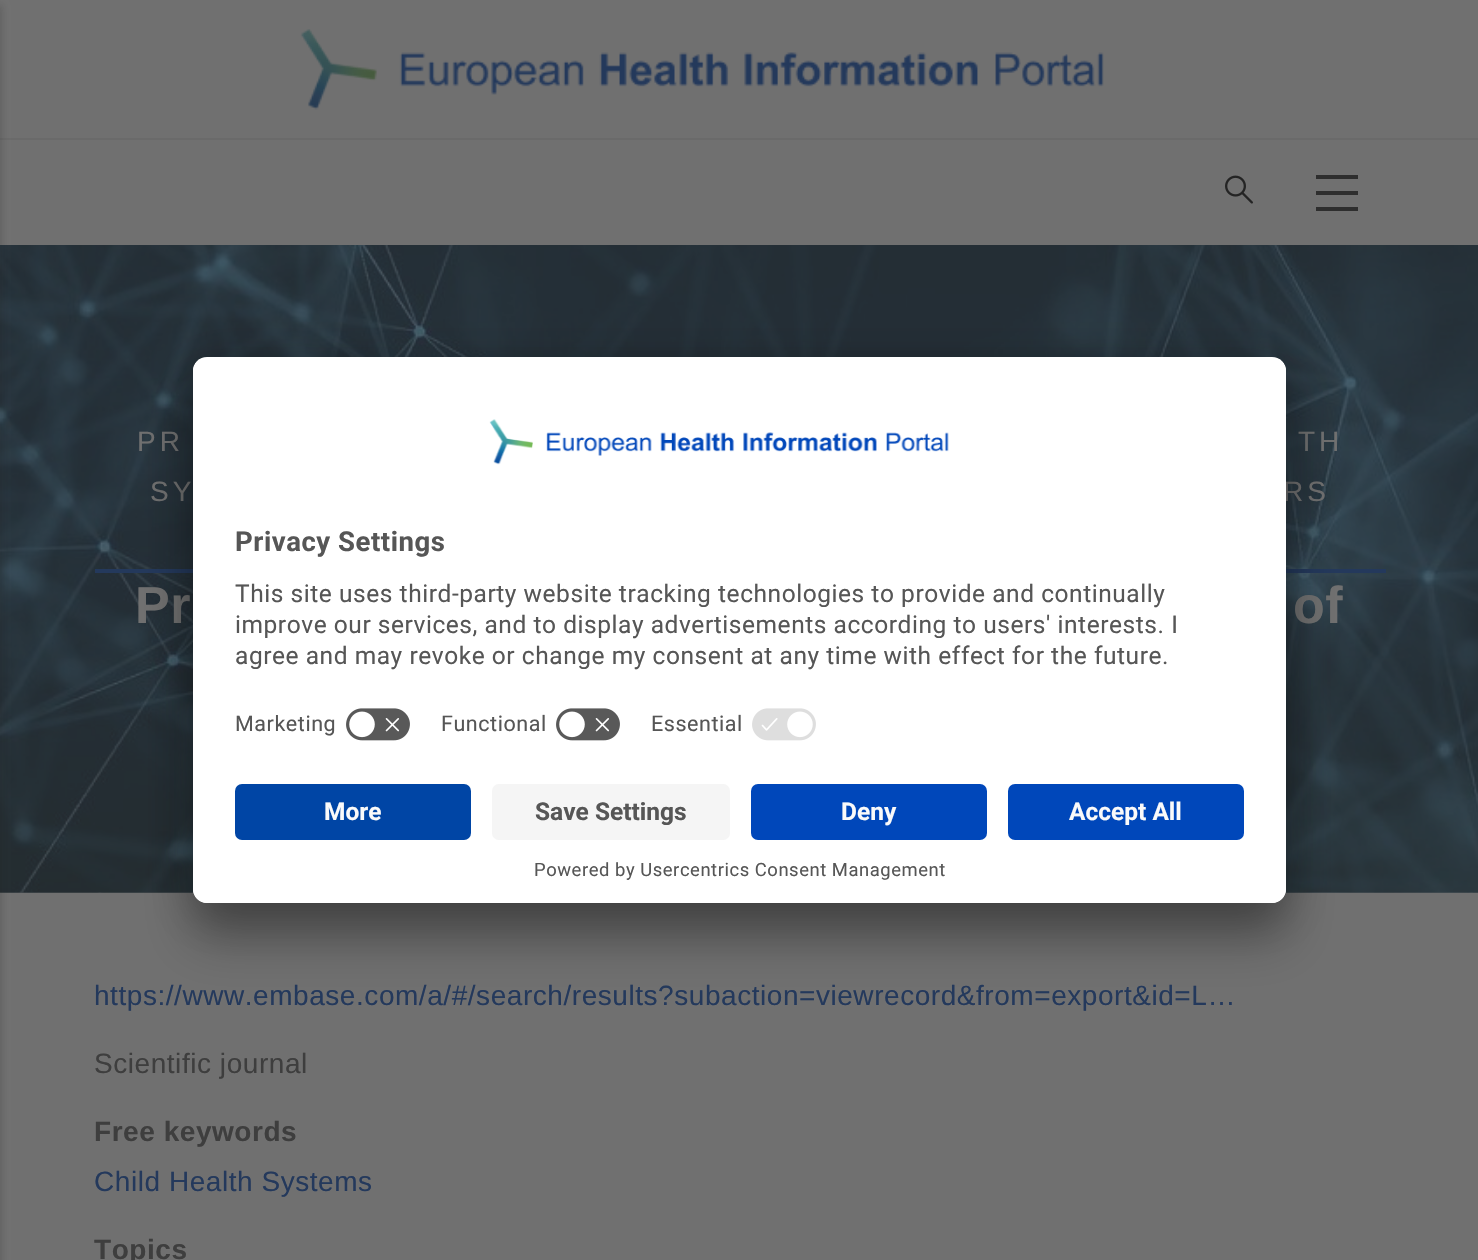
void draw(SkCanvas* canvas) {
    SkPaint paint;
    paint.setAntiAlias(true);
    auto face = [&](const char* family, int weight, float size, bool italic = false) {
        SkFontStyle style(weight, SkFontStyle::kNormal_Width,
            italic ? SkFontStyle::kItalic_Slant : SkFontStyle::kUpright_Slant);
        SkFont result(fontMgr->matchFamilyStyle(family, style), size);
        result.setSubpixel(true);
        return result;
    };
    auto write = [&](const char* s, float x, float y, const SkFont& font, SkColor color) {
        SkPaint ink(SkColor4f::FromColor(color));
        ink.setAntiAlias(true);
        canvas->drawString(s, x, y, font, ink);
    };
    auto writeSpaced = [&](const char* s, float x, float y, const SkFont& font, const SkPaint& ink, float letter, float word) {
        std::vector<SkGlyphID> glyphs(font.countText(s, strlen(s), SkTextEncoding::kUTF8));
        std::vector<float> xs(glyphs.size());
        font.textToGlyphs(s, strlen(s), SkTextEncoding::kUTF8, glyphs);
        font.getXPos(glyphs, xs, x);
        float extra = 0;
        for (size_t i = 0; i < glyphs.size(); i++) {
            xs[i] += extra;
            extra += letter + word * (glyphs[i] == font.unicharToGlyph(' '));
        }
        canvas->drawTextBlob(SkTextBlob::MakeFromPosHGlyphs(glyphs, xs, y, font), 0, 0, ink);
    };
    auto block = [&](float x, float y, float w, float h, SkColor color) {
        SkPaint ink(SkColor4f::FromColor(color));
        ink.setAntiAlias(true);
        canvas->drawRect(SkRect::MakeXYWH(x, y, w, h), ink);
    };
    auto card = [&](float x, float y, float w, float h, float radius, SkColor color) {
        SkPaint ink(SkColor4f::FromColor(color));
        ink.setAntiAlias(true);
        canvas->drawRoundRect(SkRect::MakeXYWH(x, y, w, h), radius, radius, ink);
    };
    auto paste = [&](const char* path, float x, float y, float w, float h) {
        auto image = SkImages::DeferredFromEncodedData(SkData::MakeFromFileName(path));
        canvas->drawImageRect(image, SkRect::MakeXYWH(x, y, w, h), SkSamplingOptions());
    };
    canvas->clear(SkColorSetRGB(112, 112, 112));
    block(0, 138, 1478, 2, SkColorSetRGB(106, 106, 106));
    paste("pic3.png", 0, 892, 1478, 1);
    paste("pic4.png", 0, 245, 1478, 648);
    paint.setColor(SkColorSetARGB(51, 36, 36, 36));
    paint.setMaskFilter(SkMaskFilter::MakeBlur(kNormal_SkBlurStyle, 3.5f));
    canvas->drawRect(SkRect::MakeXYWH(-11, 5, 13, 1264), paint);
    paint.setMaskFilter(nullptr);
    paste("pic1.png", 1225, 175, 28, 29);
    block(1316, 175, 42, 4, SkColorSetRGB(46, 46, 46));
    block(1316, 191, 42, 4, SkColorSetRGB(46, 46, 46));
    block(1316, 207, 42, 4, SkColorSetRGB(46, 46, 46));
    paste("pic2.png", 300, 29, 804, 81);
    block(95, 569, 1291, 4, SkColorSetRGB(36, 57, 92));
    auto kFont1 = face("Liberation Sans", 400, 28);
    paint.setColor(SkColorSetRGB(112, 112, 112));
    writeSpaced("PR", 137, 451, kFont1, paint, 4, 0);
    writeSpaced("TH", 1298, 451, kFont1, paint, 4, 0);
    writeSpaced("SY", 150, 501, kFont1, paint, 4, 0);
    writeSpaced("RS", 1283, 501, kFont1, paint, 4, 0);
    auto kFont2 = face("Liberation Sans", 700, 52);
    writeSpaced("Pr", 135, 623, kFont2, paint, 0.55f, 0);
    writeSpaced("of", 1293, 623, kFont2, paint, 0.55f, 0);
    paint.setColor(SkColorSetRGB(36, 57, 92));
    writeSpaced("https://www.embase.com/a/#/search/results?subaction=viewrecord&from=export&id=L…", 94, 1005, kFont1, paint, 0.55f, 0);
    paint.setColor(SkColorSetRGB(62, 62, 62));
    writeSpaced("Scientific journal", 94, 1073, kFont1, paint, 0.55f, 0);
    auto kFont3 = face("Liberation Sans", 700, 28);
    writeSpaced("Free keywords", 94, 1141, kFont3, paint, 0.55f, 0);
    paint.setColor(SkColorSetRGB(36, 57, 92));
    writeSpaced("Child Health Systems", 94, 1191, kFont1, paint, 0.55f, 0);
    paint.setColor(SkColorSetRGB(62, 62, 62));
    writeSpaced("Topics", 94, 1259, kFont3, paint, 0.55f, 0);
    paint.setColor(SkColorSetARGB(77, 0, 0, 0));
    paint.setMaskFilter(SkMaskFilter::MakeBlur(kNormal_SkBlurStyle, 24.5f));
    canvas->drawRoundRect(SkRect::MakeXYWH(193, 392, 1093, 546), 14, 14, paint);
    paint.setMaskFilter(nullptr);
    paint.setColor(SkColorSetARGB(56, 0, 0, 0));
    paint.setMaskFilter(SkMaskFilter::MakeBlur(kNormal_SkBlurStyle, 23));
    canvas->drawRoundRect(SkRect::MakeXYWH(193, 366, 1093, 546), 14, 14, paint);
    paint.setMaskFilter(nullptr);
    card(193, 357, 1093, 546, 14, SK_ColorWHITE);
    canvas->save();
    canvas->clipPath(SkPathBuilder().moveTo(207, 357).lineTo(1272, 357).cubicTo(1279.5f, 357, 1286, 363.5f, 1286, 371).lineTo(1286, 889).cubicTo(1286, 896.5f, 1279.5f, 903, 1272, 903).lineTo(207, 903).cubicTo(199.5f, 903, 193, 896.5f, 193, 889).lineTo(193, 371).cubicTo(193, 363.5f, 199.5f, 357, 207, 357).close().detach(), true);
    canvas->clipPath(SkPathBuilder().moveTo(207, 357).lineTo(1272, 357).cubicTo(1279.5f, 357, 1286, 363.5f, 1286, 371).lineTo(1286, 770).lineTo(193, 770).lineTo(193, 371).cubicTo(193, 363.5f, 199.5f, 357, 207, 357).close().detach(), true);
    block(193, 359, 1093, 411, SK_ColorWHITE);
    block(193, 359, 1093, 341, SK_ColorWHITE);
    canvas->restore();
    paste("pic5.png", 489, 419, 460, 46);
    auto kFont4 = face("Roboto", 700, 27.5f);
    paint.setColor(SkColorSetRGB(86, 86, 86));
    writeSpaced("Privacy Settings", 235, 551, kFont4, paint, 0.55f, 0);
    auto kFont5 = face("Roboto", 400, 24.5f);
    writeSpaced("This site uses third-party website tracking technologies to provide and continually", 235, 602, kFont5, paint, 0.55f, 0);
    writeSpaced("improve our services, and to display advertisements according to users' interests. I", 235, 633, kFont5, paint, 0.55f, 0);
    writeSpaced("agree and may revoke or change my consent at any time with effect for the future.", 235, 664, kFont5, paint, 0.55f, 0);
    auto kFont6 = face("Roboto", 400, 21.5f);
    writeSpaced("Marketing", 235, 731, kFont6, paint, 0.55f, 0);
    paste("pic6.png", 346, 708, 64, 33);
    writeSpaced("Functional", 441, 731, kFont6, paint, 0.55f, 0);
    paste("pic6.png", 556, 708, 64, 33);
    writeSpaced("Essential", 651, 731, kFont6, paint, 0.55f, 0);
    paste("pic7.png", 752, 708, 64, 33);
    paint.setColor(SK_ColorWHITE);
    canvas->drawPath(SkPathBuilder().moveTo(193, 770).lineTo(1286, 770).lineTo(1286, 889).cubicTo(1286, 896.5f, 1279.5f, 903, 1272, 903).lineTo(207, 903).cubicTo(199.5f, 903, 193, 896.5f, 193, 889).close().detach(), paint);
    card(235, 784, 236, 56, 7, SkColorSetRGB(0, 69, 165));
    auto kFont7 = face("Roboto", 700, 24.5f);
    write("More", 324, 820, kFont7, SkColorSetRGB(250, 250, 250));
    card(492, 784, 238, 56, 7, SkColorSetRGB(245, 245, 245));
    write("Save Settings", 535, 820, kFont7, SkColorSetRGB(86, 86, 86));
    card(751, 784, 236, 56, 7, SkColorSetRGB(0, 71, 186));
    write("Deny", 841, 820, kFont7, SkColorSetRGB(250, 250, 250));
    card(1008, 784, 236, 56, 7, SkColorSetRGB(0, 71, 186));
    write("Accept All", 1069, 820, kFont7, SkColorSetRGB(250, 250, 250));
    auto kFont8 = face("Roboto", 400, 18.4f);
    paint.setColor(SkColorSetRGB(86, 86, 86));
    writeSpaced("Powered by Usercentrics Consent Management", 534, 876, kFont8, paint, 0.55f, 0);
}
